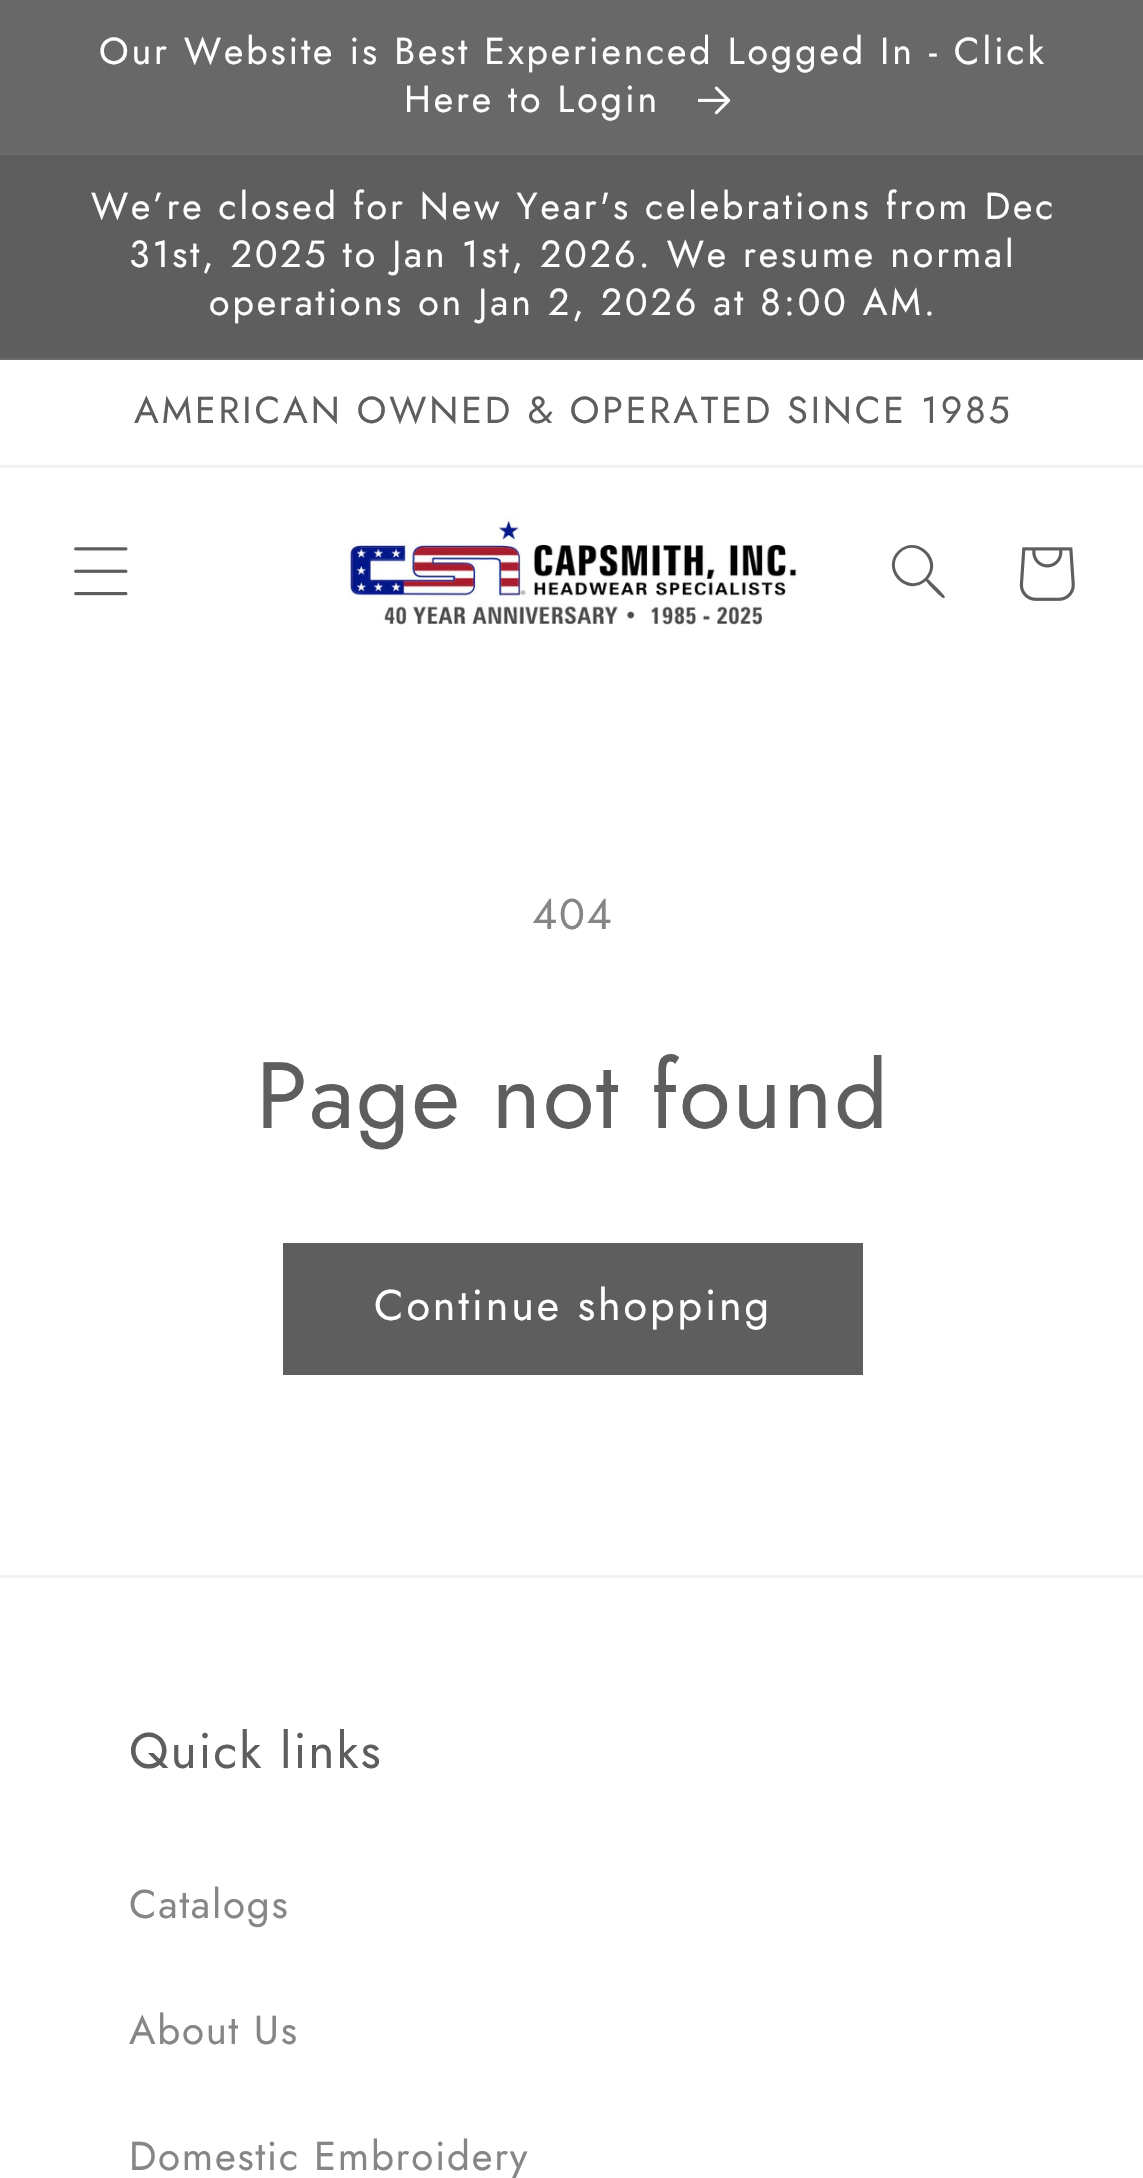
void draw(SkCanvas* canvas) {
    SkPaint paint;
    paint.setAntiAlias(true);
    auto face = [&](const char* family, int weight, float size, bool italic = false) {
        SkFontStyle style(weight, SkFontStyle::kNormal_Width,
            italic ? SkFontStyle::kItalic_Slant : SkFontStyle::kUpright_Slant);
        SkFont result(fontMgr->matchFamilyStyle(family, style), size);
        result.setSubpixel(true);
        return result;
    };
    auto writeSpaced = [&](const char* s, float x, float y, const SkFont& font, const SkPaint& ink, float letter, float word) {
        std::vector<SkGlyphID> glyphs(font.countText(s, strlen(s), SkTextEncoding::kUTF8));
        std::vector<float> xs(glyphs.size());
        font.textToGlyphs(s, strlen(s), SkTextEncoding::kUTF8, glyphs);
        font.getXPos(glyphs, xs, x);
        float extra = 0;
        for (size_t i = 0; i < glyphs.size(); i++) {
            xs[i] += extra;
            extra += letter + word * (glyphs[i] == font.unicharToGlyph(' '));
        }
        canvas->drawTextBlob(SkTextBlob::MakeFromPosHGlyphs(glyphs, xs, y, font), 0, 0, ink);
    };
    auto block = [&](float x, float y, float w, float h, SkColor color) {
        SkPaint ink(SkColor4f::FromColor(color));
        ink.setAntiAlias(true);
        canvas->drawRect(SkRect::MakeXYWH(x, y, w, h), ink);
    };
    auto paste = [&](const char* path, float x, float y, float w, float h) {
        auto image = SkImages::DeferredFromEncodedData(SkData::MakeFromFileName(path));
        canvas->drawImageRect(image, SkRect::MakeXYWH(x, y, w, h), SkSamplingOptions());
    };
    canvas->clear(SK_ColorWHITE);
    block(0, 153, 1143, 2, SkColorSetRGB(107, 107, 107));
    block(0, 0, 1143, 153, SkColorSetRGB(104, 104, 104));
    auto kFont1 = face("Jost", 400, 37.5f);
    paint.setColor(SK_ColorWHITE);
    writeSpaced("Our Website is Best Experienced Logged In - Click", 99, 64, kFont1, paint, 2.9f, 0);
    writeSpaced("Here to Login", 404, 112, kFont1, paint, 2.9f, 0);
    paste("pic1.png", 698, 86, 33, 29);
    block(0, 155, 1143, 203, SkColorSetRGB(94, 94, 94));
    block(0, 358, 1143, 2, SkColorSetRGB(107, 107, 107));
    writeSpaced("We’re closed for New Year's celebrations from Dec", 91, 219, kFont1, paint, 2.9f, 0);
    writeSpaced("31st, 2025 to Jan 1st, 2026. We resume normal", 129, 267, kFont1, paint, 2.9f, 0);
    writeSpaced("operations on Jan 2, 2026 at 8:00 AM.", 209, 315, kFont1, paint, 2.9f, 0);
    block(0, 465, 1143, 3, SkColorSetRGB(242, 242, 242));
    paint.setColor(SkColorSetRGB(94, 94, 94));
    writeSpaced("AMERICAN OWNED & OPERATED SINCE 1985", 134, 423, kFont1, paint, 2.9f, 0);
    paste("pic2.png", 74, 547, 54, 49);
    paste("pic3.png", 349, 517, 449, 108);
    canvas->drawPath(SkPathBuilder(SkPathFillType::kEvenOdd).moveTo(925, 578).cubicTo(909, 594, 884, 569, 900, 553).cubicTo(916, 537, 941, 562, 925, 578).close().moveTo(926, 581).cubicTo(906, 598, 880, 569, 898, 551).cubicTo(917, 533, 945, 560, 928, 579).cubicTo(930, 581, 945, 595, 945, 597).lineTo(944, 598).cubicTo(942, 599, 928, 584, 926, 581).close().detach(), paint);
    paste("pic4.png", 1019, 547, 56, 54);
    auto kFont2 = face("Jost", 400, 43.1f);
    paint.setColor(SkColorSetRGB(134, 134, 134));
    writeSpaced("404", 532, 929, kFont2, paint, 1.75f, 0);
    auto kFont3 = face("Jost", 400, 93.75f);
    paint.setColor(SkColorSetRGB(94, 94, 94));
    writeSpaced("Page not found", 256, 1128, kFont3, paint, 1.9f, 0);
    paint.setStyle(SkPaint::kStroke_Style);
    paint.setStrokeWidth(3);
    canvas->drawRect(SkRect::MakeXYWH(284.5f, 1244.5f, 577, 129), paint);
    block(286, 1246, 574, 126, SkColorSetRGB(94, 94, 94));
    paint.setStyle(SkPaint::kFill_Style);
    paint.setColor(SK_ColorWHITE);
    writeSpaced("Continue shopping", 374, 1320, kFont2, paint, 2.9f, 0);
    block(0, 1575, 1143, 3, SkColorSetRGB(242, 242, 242));
    auto kFont4 = face("Jost", 400, 50);
    paint.setColor(SkColorSetRGB(94, 94, 94));
    writeSpaced("Quick links", 129, 1768, kFont4, paint, 1.9f, 0);
    auto kFont5 = face("Jost", 400, 40.25f);
    paint.setColor(SkColorSetRGB(134, 134, 134));
    writeSpaced("Catalogs", 129, 1918, kFont5, paint, 1.75f, 0);
    writeSpaced("About Us", 129, 2044, kFont5, paint, 1.75f, 0);
    writeSpaced("Domestic Embroidery", 129, 2170, kFont5, paint, 1.75f, 0);
}
